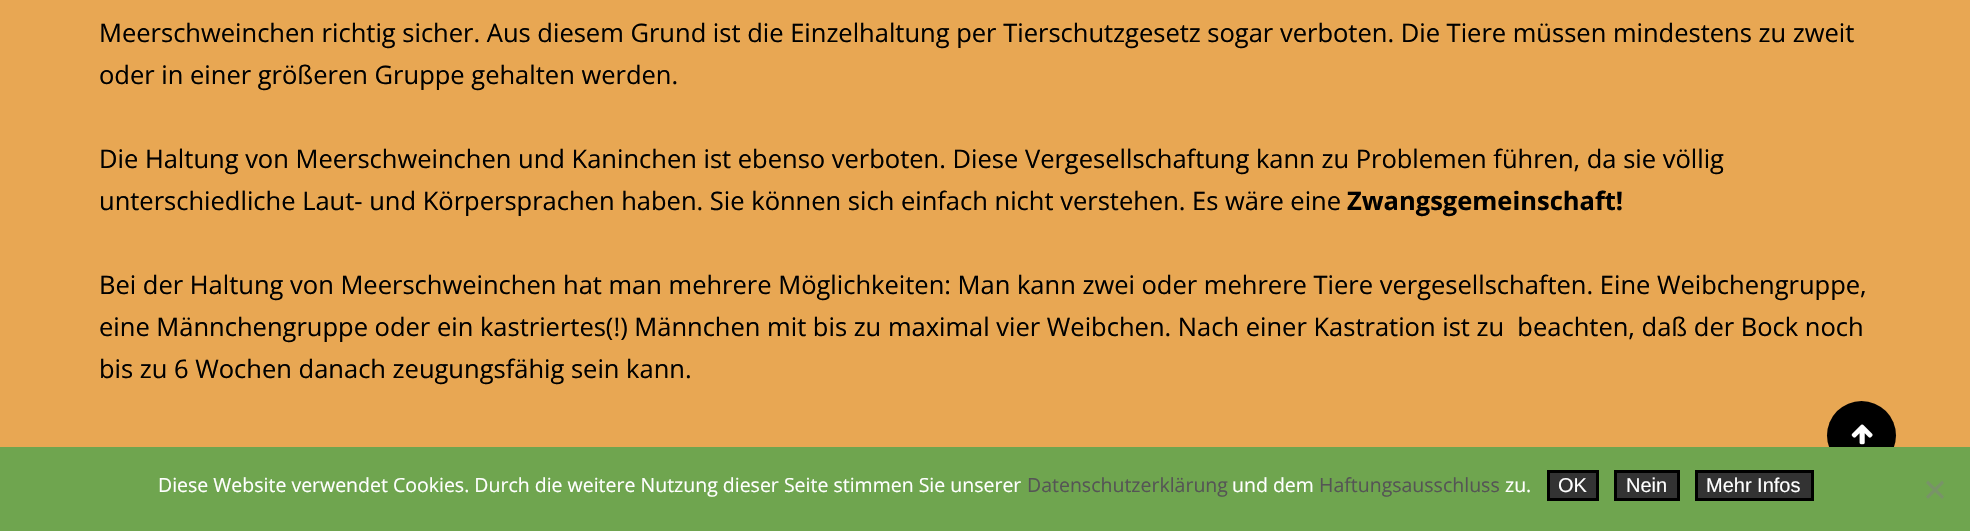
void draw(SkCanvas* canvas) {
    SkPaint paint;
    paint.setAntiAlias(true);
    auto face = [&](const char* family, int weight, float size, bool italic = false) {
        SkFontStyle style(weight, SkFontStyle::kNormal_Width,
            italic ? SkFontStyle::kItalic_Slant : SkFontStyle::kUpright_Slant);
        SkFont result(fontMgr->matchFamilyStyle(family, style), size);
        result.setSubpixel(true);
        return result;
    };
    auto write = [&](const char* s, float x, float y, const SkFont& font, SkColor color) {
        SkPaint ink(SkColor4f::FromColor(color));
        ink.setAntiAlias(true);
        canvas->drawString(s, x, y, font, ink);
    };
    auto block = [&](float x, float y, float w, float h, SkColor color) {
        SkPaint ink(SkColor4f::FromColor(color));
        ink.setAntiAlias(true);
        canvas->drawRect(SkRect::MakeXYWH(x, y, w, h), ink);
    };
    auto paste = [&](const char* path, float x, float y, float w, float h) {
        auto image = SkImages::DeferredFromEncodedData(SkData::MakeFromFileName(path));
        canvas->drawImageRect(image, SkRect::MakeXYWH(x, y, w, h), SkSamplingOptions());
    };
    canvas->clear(SkColorSetRGB(232, 167, 83));
    auto kFont1 = face("Open Sans", 400, 25.5f);
    write("Meerschweinchen richtig sicher. Aus diesem Grund ist die Einzelhaltung per Tierschutzgesetz sogar verboten. Die Tiere müssen mindestens zu zweit", 99, 42, kFont1, SK_ColorBLACK);
    write("oder in einer größeren Gruppe gehalten werden.", 99, 84, kFont1, SK_ColorBLACK);
    write("Die Haltung von Meerschweinchen und Kaninchen ist ebenso verboten. Diese Vergesellschaftung kann zu Problemen führen, da sie völlig", 99, 168, kFont1, SK_ColorBLACK);
    write("unterschiedliche Laut- und Körpersprachen haben. Sie können sich einfach nicht verstehen. Es wäre eine", 99, 210, kFont1, SK_ColorBLACK);
    auto kFont2 = face("Open Sans", 700, 25.5f);
    write("Zwangsgemeinschaft!", 1347, 210, kFont2, SK_ColorBLACK);
    write("Bei der Haltung von Meerschweinchen hat man mehrere Möglichkeiten: Man kann zwei oder mehrere Tiere vergesellschaften. Eine Weibchengruppe,", 99, 294, kFont1, SK_ColorBLACK);
    write("eine Männchengruppe oder ein kastriertes(!) Männchen mit bis zu maximal vier Weibchen. Nach einer Kastration ist zu  beachten, daß der Bock noch", 99, 336, kFont1, SK_ColorBLACK);
    write("bis zu 6 Wochen danach zeugungsfähig sein kann.", 99, 378, kFont1, SK_ColorBLACK);
    paint.setColor(SK_ColorBLACK);
    canvas->drawCircle(1861.5f, 435.5f, 34.5f, paint);
    paste("pic1.png", 1851, 424, 22, 21);
    block(0, 447, 1970, 84, SkColorSetRGB(111, 165, 79));
    auto kFont3 = face("Open Sans", 400, 19.5f);
    write("Diese Website verwendet Cookies. Durch die weitere Nutzung dieser Seite stimmen Sie unserer", 158, 492, kFont3, SK_ColorWHITE);
    write("Datenschutzerklärung", 1027, 492, kFont3, SkColorSetRGB(85, 85, 85));
    write("und dem", 1232, 492, kFont3, SK_ColorWHITE);
    write("Haftungsausschluss", 1319, 492, kFont3, SkColorSetRGB(85, 85, 85));
    write("zu.", 1505, 492, kFont3, SK_ColorWHITE);
    paint.setColor(SkColorSetRGB(51, 51, 51));
    canvas->drawRect(SkRect::MakeXYWH(1548.5f, 471.5f, 49, 28), paint);
    paint.setStyle(SkPaint::kStroke_Style);
    paint.setStrokeWidth(3);
    paint.setColor(SK_ColorBLACK);
    canvas->drawRect(SkRect::MakeXYWH(1548.5f, 471.5f, 49, 28), paint);
    auto kFont4 = face("Liberation Sans", 400, 20);
    write("OK", 1558, 492, kFont4, SK_ColorWHITE);
    paint.setStyle(SkPaint::kFill_Style);
    paint.setColor(SkColorSetRGB(51, 51, 51));
    canvas->drawRect(SkRect::MakeXYWH(1615.5f, 471.5f, 63, 28), paint);
    paint.setStyle(SkPaint::kStroke_Style);
    paint.setColor(SK_ColorBLACK);
    canvas->drawRect(SkRect::MakeXYWH(1615.5f, 471.5f, 63, 28), paint);
    write("Nein", 1626, 492, kFont4, SK_ColorWHITE);
    paint.setStyle(SkPaint::kFill_Style);
    paint.setColor(SkColorSetRGB(51, 51, 51));
    canvas->drawRect(SkRect::MakeXYWH(1696.5f, 471.5f, 116, 28), paint);
    paint.setStyle(SkPaint::kStroke_Style);
    paint.setColor(SK_ColorBLACK);
    canvas->drawRect(SkRect::MakeXYWH(1696.5f, 471.5f, 116, 28), paint);
    write("Mehr Infos", 1706, 492, kFont4, SK_ColorWHITE);
    paint.setStyle(SkPaint::kFill_Style);
    paint.setColor(SkColorSetRGB(120, 147, 104));
    canvas->drawPath(SkPathBuilder().moveTo(1942, 480.5f).lineTo(1944, 483).lineTo(1928, 499).lineTo(1926, 496.5f).close().detach(), paint);
    canvas->drawPath(SkPathBuilder().moveTo(1926, 483).lineTo(1928, 480.5f).lineTo(1944, 496.5f).lineTo(1942, 499).close().detach(), paint);
}
